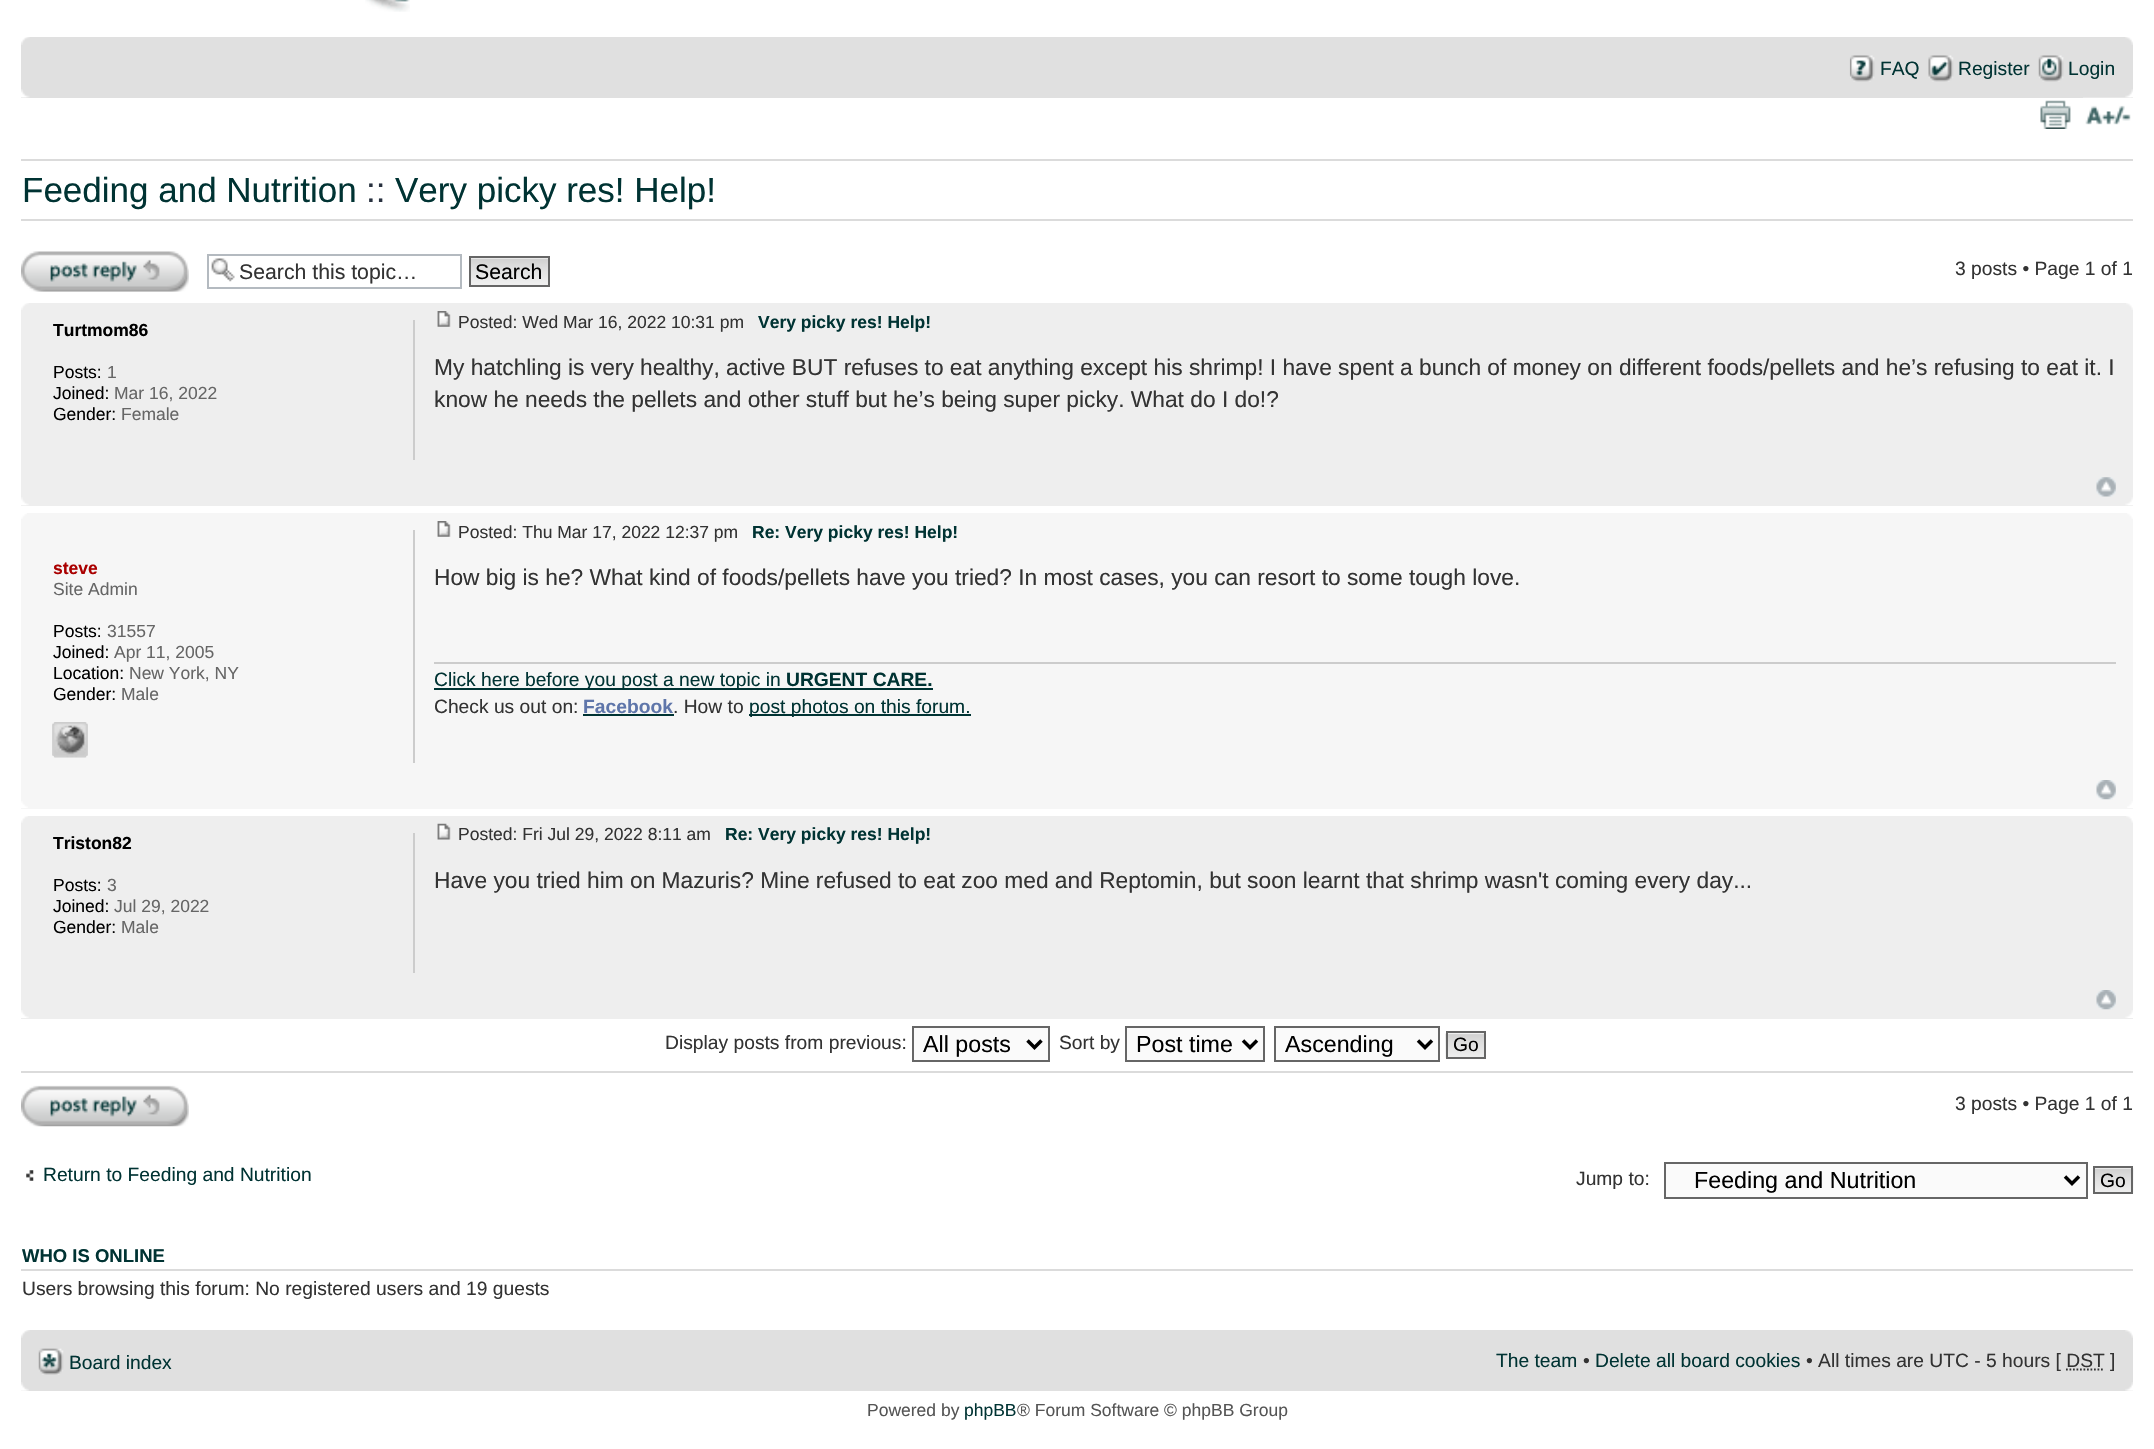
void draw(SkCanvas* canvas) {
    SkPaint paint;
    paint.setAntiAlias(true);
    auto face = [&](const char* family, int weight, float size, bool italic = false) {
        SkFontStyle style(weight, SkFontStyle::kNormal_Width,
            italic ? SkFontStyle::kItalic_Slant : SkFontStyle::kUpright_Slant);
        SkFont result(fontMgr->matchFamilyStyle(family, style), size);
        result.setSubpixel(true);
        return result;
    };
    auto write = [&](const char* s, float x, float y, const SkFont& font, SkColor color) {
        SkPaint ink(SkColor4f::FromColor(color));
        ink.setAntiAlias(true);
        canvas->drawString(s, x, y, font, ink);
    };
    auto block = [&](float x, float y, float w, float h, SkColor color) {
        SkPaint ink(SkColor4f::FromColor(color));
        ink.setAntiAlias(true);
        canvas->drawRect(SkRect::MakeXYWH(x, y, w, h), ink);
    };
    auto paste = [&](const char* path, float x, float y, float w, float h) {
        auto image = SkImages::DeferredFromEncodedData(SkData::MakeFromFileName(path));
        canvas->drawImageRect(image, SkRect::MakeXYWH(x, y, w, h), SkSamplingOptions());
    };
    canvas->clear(SK_ColorWHITE);
    paste("pic1.png", 365, 0, 45, 12);
    block(21, 37, 2112, 61, SkColorSetRGB(224, 224, 224));
    paste("pic2.png", 21, 37, 9, 8);
    paste("pic3.png", 2125, 37, 8, 8);
    paste("pic4.png", 1849, 55, 26, 27);
    auto kFont1 = face("Liberation Sans", 400, 19.25f);
    write("FAQ", 1880, 75, kFont1, SkColorSetRGB(0, 51, 51));
    paste("pic5.png", 1928, 55, 26, 27);
    write("Register", 1958, 75, kFont1, SkColorSetRGB(0, 51, 51));
    paste("pic6.png", 2038, 55, 26, 27);
    write("Login", 2068, 75, kFont1, SkColorSetRGB(0, 51, 51));
    paste("pic7.png", 21, 89, 9, 9);
    paste("pic8.png", 2125, 89, 8, 9);
    paste("pic9.png", 2040, 100, 31, 29);
    paste("pic10.png", 2083, 97, 48, 28);
    block(21, 159, 2112, 2, SkColorSetRGB(219, 219, 219));
    auto kFont2 = face("Liberation Sans", 400, 35);
    write("Feeding and Nutrition", 22, 202, kFont2, SkColorSetRGB(0, 51, 51));
    write("::", 366, 202, kFont2, SkColorSetRGB(40, 49, 63));
    write("Very picky res! Help!", 395, 202, kFont2, SkColorSetRGB(0, 51, 51));
    block(21, 219, 2112, 2, SkColorSetRGB(219, 219, 219));
    paste("pic11.png", 21, 251, 168, 41);
    paste("pic12.png", 211, 258, 24, 24);
    paint.setStyle(SkPaint::kStroke_Style);
    paint.setStrokeWidth(2);
    paint.setColor(SkColorSetRGB(180, 186, 192));
    canvas->drawRect(SkRect::MakeXYWH(208, 255, 253, 33), paint);
    auto kFont3 = face("Liberation Sans", 400, 21.25f);
    write("Search this topic…", 239, 279, kFont3, SkColorSetRGB(51, 51, 51));
    paste("pic13.png", 471, 258, 77, 27);
    paint.setColor(SkColorSetRGB(102, 102, 102));
    canvas->drawRect(SkRect::MakeXYWH(470, 257, 79, 29), paint);
    write("Search", 475, 279, kFont3, SK_ColorBLACK);
    write("3 posts • Page 1 of 1", 1955, 275, kFont1, SkColorSetRGB(51, 51, 51));
    block(21, 303, 2112, 203, SkColorSetRGB(238, 238, 238));
    paste("pic14.png", 21, 303, 8, 7);
    paste("pic15.png", 2126, 303, 7, 7);
    block(413, 320, 2, 140, SkColorSetRGB(204, 204, 204));
    auto kFont4 = face("Liberation Sans", 700, 17.5f);
    write("Turtmom86", 53, 336, kFont4, SK_ColorBLACK);
    auto kFont5 = face("Liberation Sans", 400, 17.5f);
    write("Posts:", 53, 378, kFont5, SK_ColorBLACK);
    write("1", 107, 378, kFont5, SkColorSetRGB(102, 102, 102));
    write("Joined:", 53, 399, kFont5, SK_ColorBLACK);
    write("Mar 16, 2022", 114, 399, kFont5, SkColorSetRGB(102, 102, 102));
    write("Gender:", 53, 420, kFont5, SK_ColorBLACK);
    write("Female", 121, 420, kFont5, SkColorSetRGB(102, 102, 102));
    paste("pic16.png", 437, 311, 14, 16);
    write("Posted: Wed Mar 16, 2022 10:31 pm", 458, 328, kFont5, SkColorSetRGB(51, 51, 51));
    write("Very picky res! Help!", 758, 328, kFont4, SkColorSetRGB(0, 51, 51));
    auto kFont6 = face("Liberation Sans", 400, 22.75f);
    write("My hatchling is very healthy, active BUT refuses to eat anything except his shrimp! I have spent a bunch of money on different foods/pellets and he’s refusing to eat it. I", 434, 375, kFont6, SkColorSetRGB(51, 51, 51));
    write("know he needs the pellets and other stuff but he’s being super picky. What do I do!?", 434, 407, kFont6, SkColorSetRGB(51, 51, 51));
    paste("pic17.png", 2096, 477, 20, 20);
    paste("pic18.png", 21, 497, 8, 9);
    paste("pic19.png", 2125, 497, 8, 9);
    block(21, 513, 2112, 296, SkColorSetRGB(246, 246, 246));
    paste("pic20.png", 21, 513, 6, 6);
    paste("pic21.png", 2127, 513, 6, 6);
    block(413, 530, 2, 233, SkColorSetRGB(204, 204, 204));
    write("steve", 53, 574, kFont4, SkColorSetRGB(170, 0, 0));
    write("Site Admin", 53, 595, kFont5, SkColorSetRGB(102, 102, 102));
    write("Posts:", 53, 637, kFont5, SK_ColorBLACK);
    write("31557", 107, 637, kFont5, SkColorSetRGB(102, 102, 102));
    write("Joined:", 53, 658, kFont5, SK_ColorBLACK);
    write("Apr 11, 2005", 114, 658, kFont5, SkColorSetRGB(102, 102, 102));
    write("Location:", 53, 679, kFont5, SK_ColorBLACK);
    write("New York, NY", 129, 679, kFont5, SkColorSetRGB(102, 102, 102));
    write("Gender:", 53, 700, kFont5, SK_ColorBLACK);
    write("Male", 121, 700, kFont5, SkColorSetRGB(102, 102, 102));
    paste("pic22.png", 52, 722, 36, 36);
    paste("pic23.png", 52, 722, 36, 36);
    paste("pic24.png", 437, 521, 14, 16);
    write("Posted: Thu Mar 17, 2022 12:37 pm", 458, 538, kFont5, SkColorSetRGB(51, 51, 51));
    write("Re: Very picky res! Help!", 752, 538, kFont4, SkColorSetRGB(0, 51, 51));
    write("How big is he? What kind of foods/pellets have you tried? In most cases, you can resort to some tough love.", 434, 585, kFont6, SkColorSetRGB(51, 51, 51));
    block(434, 662, 1682, 2, SkColorSetRGB(204, 204, 204));
    block(434, 688, 499, 2, SkColorSetRGB(0, 51, 51));
    write("Click here before you post a new topic in", 434, 686, kFont1, SkColorSetRGB(0, 51, 51));
    auto kFont7 = face("Liberation Sans", 700, 19.25f);
    write("URGENT CARE.", 786, 686, kFont7, SkColorSetRGB(0, 51, 51));
    write("Check us out on:", 434, 713, kFont1, SkColorSetRGB(51, 51, 51));
    write("Facebook", 583, 713, kFont7, SkColorSetRGB(95, 118, 170));
    block(583, 714, 91, 2, SkColorSetRGB(0, 51, 51));
    write(". How to", 673, 713, kFont1, SkColorSetRGB(51, 51, 51));
    block(749, 714, 222, 2, SkColorSetRGB(0, 51, 51));
    write("post photos on this forum.", 749, 713, kFont1, SkColorSetRGB(0, 51, 51));
    paste("pic25.png", 2096, 780, 20, 20);
    paste("pic26.png", 21, 801, 7, 7);
    paste("pic27.png", 2127, 801, 6, 7);
    block(21, 816, 2112, 203, SkColorSetRGB(238, 238, 238));
    paste("pic28.png", 21, 816, 7, 7);
    paste("pic29.png", 2126, 816, 7, 7);
    block(413, 833, 2, 140, SkColorSetRGB(204, 204, 204));
    write("Triston82", 53, 849, kFont4, SK_ColorBLACK);
    write("Posts:", 53, 891, kFont5, SK_ColorBLACK);
    write("3", 107, 891, kFont5, SkColorSetRGB(102, 102, 102));
    write("Joined:", 53, 912, kFont5, SK_ColorBLACK);
    write("Jul 29, 2022", 114, 912, kFont5, SkColorSetRGB(102, 102, 102));
    write("Gender:", 53, 933, kFont5, SK_ColorBLACK);
    write("Male", 121, 933, kFont5, SkColorSetRGB(102, 102, 102));
    paste("pic30.png", 437, 823, 14, 17);
    write("Posted: Fri Jul 29, 2022 8:11 am", 458, 840, kFont5, SkColorSetRGB(51, 51, 51));
    write("Re: Very picky res! Help!", 725, 840, kFont4, SkColorSetRGB(0, 51, 51));
    write("Have you tried him on Mazuris? Mine refused to eat zoo med and Reptomin, but soon learnt that shrimp wasn't coming every day...", 434, 888, kFont6, SkColorSetRGB(51, 51, 51));
    paste("pic31.png", 2096, 990, 20, 20);
    paste("pic32.png", 21, 1010, 8, 8);
    paste("pic33.png", 2125, 1010, 8, 8);
    write("Display posts from previous:", 665, 1049, kFont1, SkColorSetRGB(51, 51, 51));
    paint.setStyle(SkPaint::kFill_Style);
    paint.setColor(SkColorSetRGB(250, 250, 250));
    canvas->drawRect(SkRect::MakeXYWH(913, 1027, 136, 34), paint);
    paint.setStyle(SkPaint::kStroke_Style);
    paint.setColor(SkColorSetRGB(102, 102, 102));
    canvas->drawRect(SkRect::MakeXYWH(913, 1027, 136, 34), paint);
    paint.setStrokeWidth(3.5f);
    paint.setColor(SK_ColorBLACK);
    canvas->drawPath(SkPathBuilder().moveTo(1027.5f, 1040.5f).lineTo(1034.5f, 1047.5f).lineTo(1041.5f, 1040.5f).detach(), paint);
    auto kFont8 = face("Liberation Sans", 400, 23.25f);
    write("All posts", 923, 1052, kFont8, SK_ColorBLACK);
    write("Sort by", 1059, 1049, kFont1, SkColorSetRGB(51, 51, 51));
    paint.setStyle(SkPaint::kFill_Style);
    paint.setColor(SkColorSetRGB(250, 250, 250));
    canvas->drawRect(SkRect::MakeXYWH(1126, 1027, 138, 34), paint);
    paint.setStyle(SkPaint::kStroke_Style);
    paint.setStrokeWidth(2);
    paint.setColor(SkColorSetRGB(102, 102, 102));
    canvas->drawRect(SkRect::MakeXYWH(1126, 1027, 138, 34), paint);
    paint.setStrokeWidth(3.5f);
    paint.setColor(SK_ColorBLACK);
    canvas->drawPath(SkPathBuilder().moveTo(1243, 1040.5f).lineTo(1250, 1047.5f).lineTo(1257, 1040.5f).detach(), paint);
    write("Post time", 1136, 1052, kFont8, SK_ColorBLACK);
    paint.setStyle(SkPaint::kFill_Style);
    paint.setColor(SkColorSetRGB(250, 250, 250));
    canvas->drawRect(SkRect::MakeXYWH(1275, 1027, 164, 34), paint);
    paint.setStyle(SkPaint::kStroke_Style);
    paint.setStrokeWidth(2);
    paint.setColor(SkColorSetRGB(102, 102, 102));
    canvas->drawRect(SkRect::MakeXYWH(1275, 1027, 164, 34), paint);
    paint.setStrokeWidth(3.5f);
    paint.setColor(SK_ColorBLACK);
    canvas->drawPath(SkPathBuilder().moveTo(1418, 1040.5f).lineTo(1425, 1047.5f).lineTo(1432, 1040.5f).detach(), paint);
    write("Ascending", 1285, 1052, kFont8, SK_ColorBLACK);
    paste("pic34.png", 1445, 1032, 39, 26);
    paint.setStrokeWidth(2);
    paint.setColor(SkColorSetRGB(102, 102, 102));
    canvas->drawRect(SkRect::MakeXYWH(1447, 1032, 38, 26), paint);
    write("Go", 1453, 1051, kFont1, SK_ColorBLACK);
    block(21, 1071, 2112, 2, SkColorSetRGB(219, 219, 219));
    paste("pic35.png", 21, 1085, 168, 42);
    write("3 posts • Page 1 of 1", 1955, 1110, kFont1, SkColorSetRGB(51, 51, 51));
    paste("pic36.png", 26, 1170, 8, 11);
    write("Return to Feeding and Nutrition", 43, 1181, kFont1, SkColorSetRGB(0, 51, 51));
    write("Jump to:", 1576, 1185, kFont1, SkColorSetRGB(51, 51, 51));
    paint.setStyle(SkPaint::kFill_Style);
    paint.setColor(SkColorSetRGB(250, 250, 250));
    canvas->drawRect(SkRect::MakeXYWH(1665, 1163, 422, 35), paint);
    paint.setStyle(SkPaint::kStroke_Style);
    paint.setColor(SkColorSetRGB(102, 102, 102));
    canvas->drawRect(SkRect::MakeXYWH(1665, 1163, 422, 35), paint);
    paint.setStrokeWidth(3.5f);
    paint.setColor(SK_ColorBLACK);
    canvas->drawPath(SkPathBuilder().moveTo(2065, 1176.5f).lineTo(2072, 1183.5f).lineTo(2079, 1176.5f).detach(), paint);
    write("Feeding and Nutrition", 1694, 1188, kFont8, SK_ColorBLACK);
    paste("pic37.png", 2095, 1167, 39, 26);
    paint.setStrokeWidth(2);
    paint.setColor(SkColorSetRGB(102, 102, 102));
    canvas->drawRect(SkRect::MakeXYWH(2094, 1167, 38, 26), paint);
    write("Go", 2100, 1187, kFont1, SK_ColorBLACK);
    block(21, 1269, 2112, 2, SkColorSetRGB(219, 219, 219));
    auto kFont9 = face("Liberation Sans", 700, 18.5f);
    write("WHO IS ONLINE", 22, 1262, kFont9, SkColorSetRGB(0, 51, 51));
    write("Users browsing this forum: No registered users and 19 guests", 22, 1295, kFont1, SkColorSetRGB(51, 51, 51));
    block(21, 1330, 2112, 61, SkColorSetRGB(224, 224, 224));
    paste("pic38.png", 21, 1330, 9, 8);
    paste("pic39.png", 2125, 1330, 8, 8);
    paste("pic40.png", 38, 1348, 26, 27);
    write("Board index", 69, 1369, kFont1, SkColorSetRGB(0, 51, 51));
    write("The team", 1496, 1367, kFont1, SkColorSetRGB(0, 51, 51));
    write("•", 1583, 1367, kFont1, SkColorSetRGB(51, 51, 51));
    write("Delete all board cookies", 1595, 1367, kFont1, SkColorSetRGB(0, 51, 51));
    write("• All times are UTC - 5 hours [ DST ]", 1806, 1367, kFont1, SkColorSetRGB(51, 51, 51));
    paint.setStrokeWidth(1.8f);
    paint.setColor(SkColorSetRGB(51, 51, 51));
    paint.setPathEffect(SkDashPathEffect::Make({{1.75f, 1.75f}}, 0));
    canvas->drawPath(SkPathBuilder().moveTo(2066, 1369.5f).lineTo(2104.5f, 1369.5f).detach(), paint);
    paint.setPathEffect(nullptr);
    paste("pic41.png", 21, 1382, 8, 9);
    paste("pic42.png", 2125, 1382, 8, 9);
    write("Powered by", 867, 1416, kFont5, SkColorSetRGB(85, 85, 85));
    write("phpBB", 964, 1416, kFont5, SkColorSetRGB(0, 51, 51));
    write("® Forum Software © phpBB Group", 1017, 1416, kFont5, SkColorSetRGB(85, 85, 85));
}
